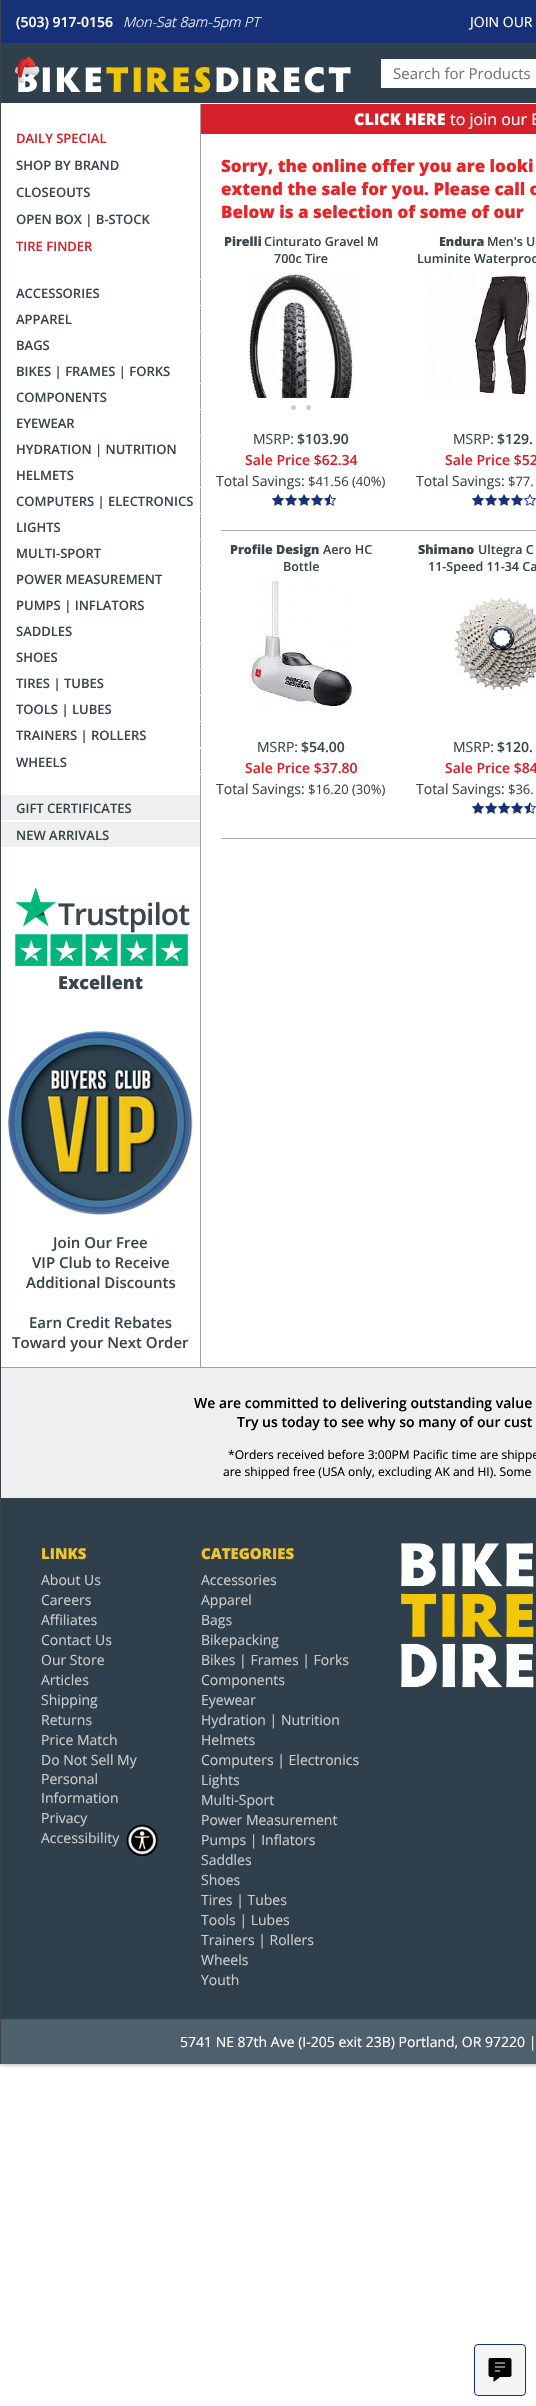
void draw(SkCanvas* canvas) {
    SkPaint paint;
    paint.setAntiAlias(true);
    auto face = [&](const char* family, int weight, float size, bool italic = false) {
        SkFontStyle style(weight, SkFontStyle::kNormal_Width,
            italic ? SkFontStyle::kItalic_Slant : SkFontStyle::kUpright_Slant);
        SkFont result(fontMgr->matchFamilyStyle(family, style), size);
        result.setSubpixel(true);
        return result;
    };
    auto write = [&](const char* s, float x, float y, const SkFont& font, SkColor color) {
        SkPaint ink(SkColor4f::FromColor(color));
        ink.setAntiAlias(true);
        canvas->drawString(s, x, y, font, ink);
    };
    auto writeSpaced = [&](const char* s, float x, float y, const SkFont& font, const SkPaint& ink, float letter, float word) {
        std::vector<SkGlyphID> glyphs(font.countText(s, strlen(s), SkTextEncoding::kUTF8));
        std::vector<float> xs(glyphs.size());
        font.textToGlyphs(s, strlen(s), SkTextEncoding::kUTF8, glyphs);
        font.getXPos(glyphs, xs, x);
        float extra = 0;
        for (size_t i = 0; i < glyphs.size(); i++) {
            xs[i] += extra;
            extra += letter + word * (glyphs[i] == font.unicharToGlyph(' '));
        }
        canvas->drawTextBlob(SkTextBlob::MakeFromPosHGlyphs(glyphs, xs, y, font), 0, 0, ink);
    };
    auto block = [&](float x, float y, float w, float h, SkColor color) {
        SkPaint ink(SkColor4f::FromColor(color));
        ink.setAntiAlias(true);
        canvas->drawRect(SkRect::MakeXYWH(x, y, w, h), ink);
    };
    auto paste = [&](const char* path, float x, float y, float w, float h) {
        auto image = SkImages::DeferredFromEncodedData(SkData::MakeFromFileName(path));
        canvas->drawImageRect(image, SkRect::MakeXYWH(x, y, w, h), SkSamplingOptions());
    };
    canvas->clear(SK_ColorWHITE);
    canvas->save();
    canvas->clipRect(SkRect::MakeXYWH(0, 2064, 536, 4));
    paint.setColor(SkColorSetARGB(102, 0, 0, 0));
    paint.setMaskFilter(SkMaskFilter::MakeBlur(kNormal_SkBlurStyle, 2.5f));
    canvas->drawRect(SkRect::MakeXYWH(0, 0, 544, 2064), paint);
    paint.setMaskFilter(nullptr);
    canvas->restore();
    block(0, 0, 1, 2064, SkColorSetRGB(59, 70, 74));
    block(1, 0, 535, 43, SkColorSetRGB(22, 49, 120));
    auto kFont1 = face("Open Sans", 600, 14);
    write("(503) 917-0156", 16, 27, kFont1, SK_ColorWHITE);
    auto kFont2 = face("Open Sans", 300, 14, true);
    write("Mon-Sat 8am-5pm PT", 123, 27, kFont2, SK_ColorWHITE);
    auto kFont3 = face("Open Sans", 400, 14);
    write("JOIN OUR", 470, 27, kFont3, SK_ColorWHITE);
    block(1, 43, 535, 60, SkColorSetRGB(47, 63, 76));
    paste("pic1.png", 14, 56, 337, 37);
    block(381, 59, 155, 29, SK_ColorWHITE);
    auto kFont4 = face("Open Sans", 400, 15);
    write("Search for Products", 393, 79, kFont4, SkColorSetRGB(117, 117, 117));
    block(200, 104, 1, 1263, SkColorSetRGB(160, 160, 160));
    auto kFont5 = face("Open Sans", 600, 13);
    write("DAILY SPECIAL", 16, 143, kFont5, SkColorSetRGB(216, 32, 42));
    write("SHOP BY BRAND", 16, 170, kFont5, SkColorSetRGB(59, 70, 74));
    write("CLOSEOUTS", 16, 197, kFont5, SkColorSetRGB(59, 70, 74));
    write("OPEN BOX | B-STOCK", 16, 224, kFont5, SkColorSetRGB(59, 70, 74));
    write("TIRE FINDER", 16, 251, kFont5, SkColorSetRGB(216, 32, 42));
    block(200, 279, 1, 1, SK_ColorWHITE);
    block(200, 305, 1, 1, SK_ColorWHITE);
    write("ACCESSORIES", 16, 298, kFont5, SkColorSetRGB(59, 70, 74));
    block(200, 331, 1, 1, SK_ColorWHITE);
    write("APPAREL", 16, 324, kFont5, SkColorSetRGB(59, 70, 74));
    block(200, 357, 1, 1, SK_ColorWHITE);
    write("BAGS", 16, 350, kFont5, SkColorSetRGB(59, 70, 74));
    block(200, 383, 1, 1, SK_ColorWHITE);
    write("BIKES | FRAMES | FORKS", 16, 376, kFont5, SkColorSetRGB(59, 70, 74));
    block(200, 409, 1, 1, SK_ColorWHITE);
    write("COMPONENTS", 16, 402, kFont5, SkColorSetRGB(59, 70, 74));
    block(200, 435, 1, 1, SK_ColorWHITE);
    write("EYEWEAR", 16, 428, kFont5, SkColorSetRGB(59, 70, 74));
    block(200, 461, 1, 1, SK_ColorWHITE);
    write("HYDRATION | NUTRITION", 16, 454, kFont5, SkColorSetRGB(59, 70, 74));
    block(200, 487, 1, 1, SK_ColorWHITE);
    write("HELMETS", 16, 480, kFont5, SkColorSetRGB(59, 70, 74));
    block(200, 513, 1, 1, SK_ColorWHITE);
    write("COMPUTERS | ELECTRONICS", 16, 506, kFont5, SkColorSetRGB(59, 70, 74));
    block(200, 539, 1, 1, SK_ColorWHITE);
    write("LIGHTS", 16, 532, kFont5, SkColorSetRGB(59, 70, 74));
    block(200, 565, 1, 1, SK_ColorWHITE);
    write("MULTI-SPORT", 16, 558, kFont5, SkColorSetRGB(59, 70, 74));
    block(200, 591, 1, 1, SK_ColorWHITE);
    write("POWER MEASUREMENT", 16, 584, kFont5, SkColorSetRGB(59, 70, 74));
    block(200, 617, 1, 1, SK_ColorWHITE);
    write("PUMPS | INFLATORS", 16, 610, kFont5, SkColorSetRGB(59, 70, 74));
    block(200, 643, 1, 1, SK_ColorWHITE);
    write("SADDLES", 16, 636, kFont5, SkColorSetRGB(59, 70, 74));
    block(200, 669, 1, 1, SK_ColorWHITE);
    write("SHOES", 16, 662, kFont5, SkColorSetRGB(59, 70, 74));
    block(200, 695, 1, 1, SK_ColorWHITE);
    write("TIRES | TUBES", 16, 688, kFont5, SkColorSetRGB(59, 70, 74));
    block(200, 721, 1, 1, SK_ColorWHITE);
    write("TOOLS | LUBES", 16, 714, kFont5, SkColorSetRGB(59, 70, 74));
    block(200, 747, 1, 2, SK_ColorWHITE);
    write("TRAINERS | ROLLERS", 16, 740, kFont5, SkColorSetRGB(59, 70, 74));
    block(200, 774, 1, 1, SK_ColorWHITE);
    write("WHEELS", 16, 767, kFont5, SkColorSetRGB(59, 70, 74));
    block(1, 795, 199, 25, SkColorSetRGB(239, 239, 239));
    write("GIFT CERTIFICATES", 16, 813, kFont5, SkColorSetRGB(59, 70, 74));
    block(1, 822, 199, 25, SkColorSetRGB(239, 239, 239));
    write("NEW ARRIVALS", 16, 840, kFont5, SkColorSetRGB(59, 70, 74));
    paste("pic2.png", 15, 887, 173, 79);
    auto kFont6 = face("Open Sans", 600, 30);
    paint.setColor(SkColorSetRGB(59, 70, 74));
    writeSpaced("Trustpilot", 58, 925, kFont6, paint, -1, 0);
    auto kFont7 = face("Open Sans", 800, 18);
    write("Excellent", 58, 989, kFont7, SkColorSetRGB(59, 70, 74));
    paste("pic3.png", 8, 1031, 185, 184);
    auto kFont8 = face("Open Sans", 600, 15);
    write("Join Our Free", 53, 1248, kFont8, SkColorSetRGB(59, 70, 74));
    write("VIP Club to Receive", 32, 1268, kFont8, SkColorSetRGB(59, 70, 74));
    write("Additional Discounts", 26, 1288, kFont8, SkColorSetRGB(59, 70, 74));
    write("Earn Credit Rebates", 29, 1328, kFont8, SkColorSetRGB(59, 70, 74));
    write("Toward your Next Order", 12, 1348, kFont8, SkColorSetRGB(59, 70, 74));
    block(201, 104, 335, 30, SkColorSetRGB(216, 32, 42));
    auto kFont9 = face("Open Sans", 800, 16);
    write("CLICK HERE", 354, 125, kFont9, SK_ColorWHITE);
    auto kFont10 = face("Open Sans", 400, 16);
    write("to join our E", 450, 125, kFont10, SK_ColorWHITE);
    auto kFont11 = face("Open Sans", 800, 17);
    write("Sorry, the online offer you are looki", 221, 172, kFont11, SkColorSetRGB(233, 36, 39));
    write("extend the sale for you. Please call o", 221, 195, kFont11, SkColorSetRGB(233, 36, 39));
    write("Below is a selection of some of our", 221, 218, kFont11, SkColorSetRGB(233, 36, 39));
    auto kFont12 = face("Open Sans", 800, 12.5f);
    write("Pirelli", 224, 246, kFont12, SkColorSetRGB(59, 70, 74));
    auto kFont13 = face("Open Sans", 600, 12.5f);
    write("Cinturato Gravel M", 264, 246, kFont13, SkColorSetRGB(59, 70, 74));
    write("700c Tire", 274, 263, kFont13, SkColorSetRGB(59, 70, 74));
    paste("pic4.png", 248, 272, 107, 126);
    paint.setColor(SkColorSetRGB(204, 204, 204));
    canvas->drawCircle(293.5f, 407.5f, 2.5f, paint);
    canvas->drawCircle(308.5f, 407.5f, 2.5f, paint);
    write("MSRP:", 253, 444, kFont3, SkColorSetRGB(59, 70, 74));
    write("$103.90", 297, 444, kFont1, SkColorSetRGB(59, 70, 74));
    write("Sale Price $62.34", 245, 465, kFont1, SkColorSetRGB(216, 32, 42));
    write("Total Savings:", 216, 486, kFont3, SkColorSetRGB(59, 70, 74));
    auto kFont14 = face("Open Sans", 400, 13);
    write("$41.56 (40%)", 308, 486, kFont14, SkColorSetRGB(59, 70, 74));
    paste("pic5.png", 272, 494, 12, 12);
    paste("pic5.png", 285, 494, 12, 12);
    paste("pic5.png", 298, 494, 12, 12);
    paste("pic5.png", 311, 494, 12, 12);
    paste("pic6.png", 324, 494, 12, 12);
    write("Endura", 439, 246, kFont12, SkColorSetRGB(59, 70, 74));
    write("Men's U", 487, 246, kFont13, SkColorSetRGB(59, 70, 74));
    write("Luminite Waterproo", 417, 263, kFont13, SkColorSetRGB(59, 70, 74));
    paste("pic7.png", 427, 272, 107, 123);
    write("MSRP:", 453, 444, kFont3, SkColorSetRGB(59, 70, 74));
    write("$129.", 497, 444, kFont1, SkColorSetRGB(59, 70, 74));
    write("Sale Price $52", 445, 465, kFont1, SkColorSetRGB(216, 32, 42));
    write("Total Savings:", 416, 486, kFont3, SkColorSetRGB(59, 70, 74));
    write("$77.", 508, 486, kFont14, SkColorSetRGB(59, 70, 74));
    paste("pic5.png", 472, 494, 12, 12);
    paste("pic5.png", 485, 494, 12, 12);
    paste("pic5.png", 498, 494, 12, 12);
    paste("pic5.png", 511, 494, 12, 12);
    paste("pic8.png", 524, 494, 12, 12);
    block(221, 530, 315, 1, SkColorSetRGB(172, 172, 172));
    write("Profile Design", 230, 554, kFont12, SkColorSetRGB(59, 70, 74));
    write("Aero HC", 323, 554, kFont13, SkColorSetRGB(59, 70, 74));
    write("Bottle", 283, 571, kFont13, SkColorSetRGB(59, 70, 74));
    paste("pic9.png", 248, 580, 107, 126);
    write("MSRP:", 257, 752, kFont3, SkColorSetRGB(59, 70, 74));
    write("$54.00", 301, 752, kFont1, SkColorSetRGB(59, 70, 74));
    write("Sale Price $37.80", 245, 773, kFont1, SkColorSetRGB(216, 32, 42));
    write("Total Savings:", 216, 794, kFont3, SkColorSetRGB(59, 70, 74));
    write("$16.20 (30%)", 308, 794, kFont14, SkColorSetRGB(59, 70, 74));
    write("Shimano", 418, 554, kFont12, SkColorSetRGB(59, 70, 74));
    write("Ultegra C", 478, 554, kFont13, SkColorSetRGB(59, 70, 74));
    write("11-Speed 11-34 Ca", 428, 571, kFont13, SkColorSetRGB(59, 70, 74));
    paste("pic10.png", 454, 597, 82, 94);
    write("MSRP:", 453, 752, kFont3, SkColorSetRGB(59, 70, 74));
    write("$120.", 497, 752, kFont1, SkColorSetRGB(59, 70, 74));
    write("Sale Price $84", 445, 773, kFont1, SkColorSetRGB(216, 32, 42));
    write("Total Savings:", 416, 794, kFont3, SkColorSetRGB(59, 70, 74));
    write("$36.", 508, 794, kFont14, SkColorSetRGB(59, 70, 74));
    paste("pic5.png", 472, 802, 12, 12);
    paste("pic5.png", 485, 802, 12, 12);
    paste("pic5.png", 498, 802, 12, 12);
    paste("pic5.png", 511, 802, 12, 12);
    paste("pic6.png", 524, 802, 12, 12);
    block(221, 838, 315, 1, SkColorSetRGB(172, 172, 172));
    block(1, 1368, 535, 130, SkColorSetRGB(239, 239, 239));
    block(1, 1367, 535, 1, SkColorSetRGB(160, 160, 160));
    write("We are committed to delivering outstanding value", 194, 1408, kFont1, SK_ColorBLACK);
    write("Try us today to see why so many of our cust", 237, 1427, kFont1, SK_ColorBLACK);
    auto kFont15 = face("Open Sans", 400, 12.05f);
    write("*Orders received before 3:00PM Pacific time are shippe", 228, 1459, kFont15, SK_ColorBLACK);
    write("are shipped free (USA only, excluding AK and HI). Some", 223, 1476, kFont15, SK_ColorBLACK);
    block(1, 1498, 535, 521, SkColorSetRGB(47, 63, 76));
    auto kFont16 = face("Open Sans", 800, 15);
    write("LINKS", 41, 1559, kFont16, SkColorSetRGB(239, 198, 45));
    write("About Us", 41, 1585, kFont3, SkColorSetRGB(204, 204, 204));
    write("Careers", 41, 1605, kFont3, SkColorSetRGB(204, 204, 204));
    write("Affiliates", 41, 1625, kFont3, SkColorSetRGB(204, 204, 204));
    write("Contact Us", 41, 1645, kFont3, SkColorSetRGB(204, 204, 204));
    write("Our Store", 41, 1665, kFont3, SkColorSetRGB(204, 204, 204));
    write("Articles", 41, 1685, kFont3, SkColorSetRGB(204, 204, 204));
    write("Shipping", 41, 1705, kFont3, SkColorSetRGB(204, 204, 204));
    write("Returns", 41, 1725, kFont3, SkColorSetRGB(204, 204, 204));
    write("Price Match", 41, 1745, kFont3, SkColorSetRGB(204, 204, 204));
    write("Do Not Sell My", 41, 1765, kFont3, SkColorSetRGB(204, 204, 204));
    write("Personal", 41, 1784, kFont3, SkColorSetRGB(204, 204, 204));
    write("Information", 41, 1803, kFont3, SkColorSetRGB(204, 204, 204));
    write("Privacy", 41, 1823, kFont3, SkColorSetRGB(204, 204, 204));
    write("Accessibility", 41, 1843, kFont3, SkColorSetRGB(204, 204, 204));
    paste("pic11.png", 126, 1824, 33, 33);
    write("CATEGORIES", 201, 1559, kFont16, SkColorSetRGB(239, 198, 45));
    write("Accessories", 201, 1585, kFont3, SkColorSetRGB(204, 204, 204));
    write("Apparel", 201, 1605, kFont3, SkColorSetRGB(204, 204, 204));
    write("Bags", 201, 1625, kFont3, SkColorSetRGB(204, 204, 204));
    write("Bikepacking", 201, 1645, kFont3, SkColorSetRGB(204, 204, 204));
    write("Bikes | Frames | Forks", 201, 1665, kFont3, SkColorSetRGB(204, 204, 204));
    write("Components", 201, 1685, kFont3, SkColorSetRGB(204, 204, 204));
    write("Eyewear", 201, 1705, kFont3, SkColorSetRGB(204, 204, 204));
    write("Hydration | Nutrition", 201, 1725, kFont3, SkColorSetRGB(204, 204, 204));
    write("Helmets", 201, 1745, kFont3, SkColorSetRGB(204, 204, 204));
    write("Computers | Electronics", 201, 1765, kFont3, SkColorSetRGB(204, 204, 204));
    write("Lights", 201, 1785, kFont3, SkColorSetRGB(204, 204, 204));
    write("Multi-Sport", 201, 1805, kFont3, SkColorSetRGB(204, 204, 204));
    write("Power Measurement", 201, 1825, kFont3, SkColorSetRGB(204, 204, 204));
    write("Pumps | Inflators", 201, 1845, kFont3, SkColorSetRGB(204, 204, 204));
    write("Saddles", 201, 1865, kFont3, SkColorSetRGB(204, 204, 204));
    write("Shoes", 201, 1885, kFont3, SkColorSetRGB(204, 204, 204));
    write("Tires | Tubes", 201, 1905, kFont3, SkColorSetRGB(204, 204, 204));
    write("Tools | Lubes", 201, 1925, kFont3, SkColorSetRGB(204, 204, 204));
    write("Trainers | Rollers", 201, 1945, kFont3, SkColorSetRGB(204, 204, 204));
    write("Wheels", 201, 1965, kFont3, SkColorSetRGB(204, 204, 204));
    write("Youth", 201, 1985, kFont3, SkColorSetRGB(204, 204, 204));
    paste("pic12.png", 401, 1543, 133, 145);
    block(1, 2019, 535, 45, SkColorSetRGB(78, 96, 108));
    write("5741 NE 87th Ave (I-205 exit 23B) Portland, OR 97220 |", 180, 2047, kFont3, SK_ColorWHITE);
    paint.setColor(SkColorSetRGB(245, 245, 245));
    canvas->drawRoundRect(SkRect::MakeXYWH(474.5f, 2344.5f, 51, 51), 3.5f, 3.5f, paint);
    paint.setStyle(SkPaint::kStroke_Style);
    paint.setStrokeWidth(1);
    paint.setColor(SkColorSetRGB(22, 49, 120));
    canvas->drawRoundRect(SkRect::MakeXYWH(474.5f, 2344.5f, 51, 51), 3.5f, 3.5f, paint);
    paste("pic13.png", 488, 2358, 24, 24);
}
